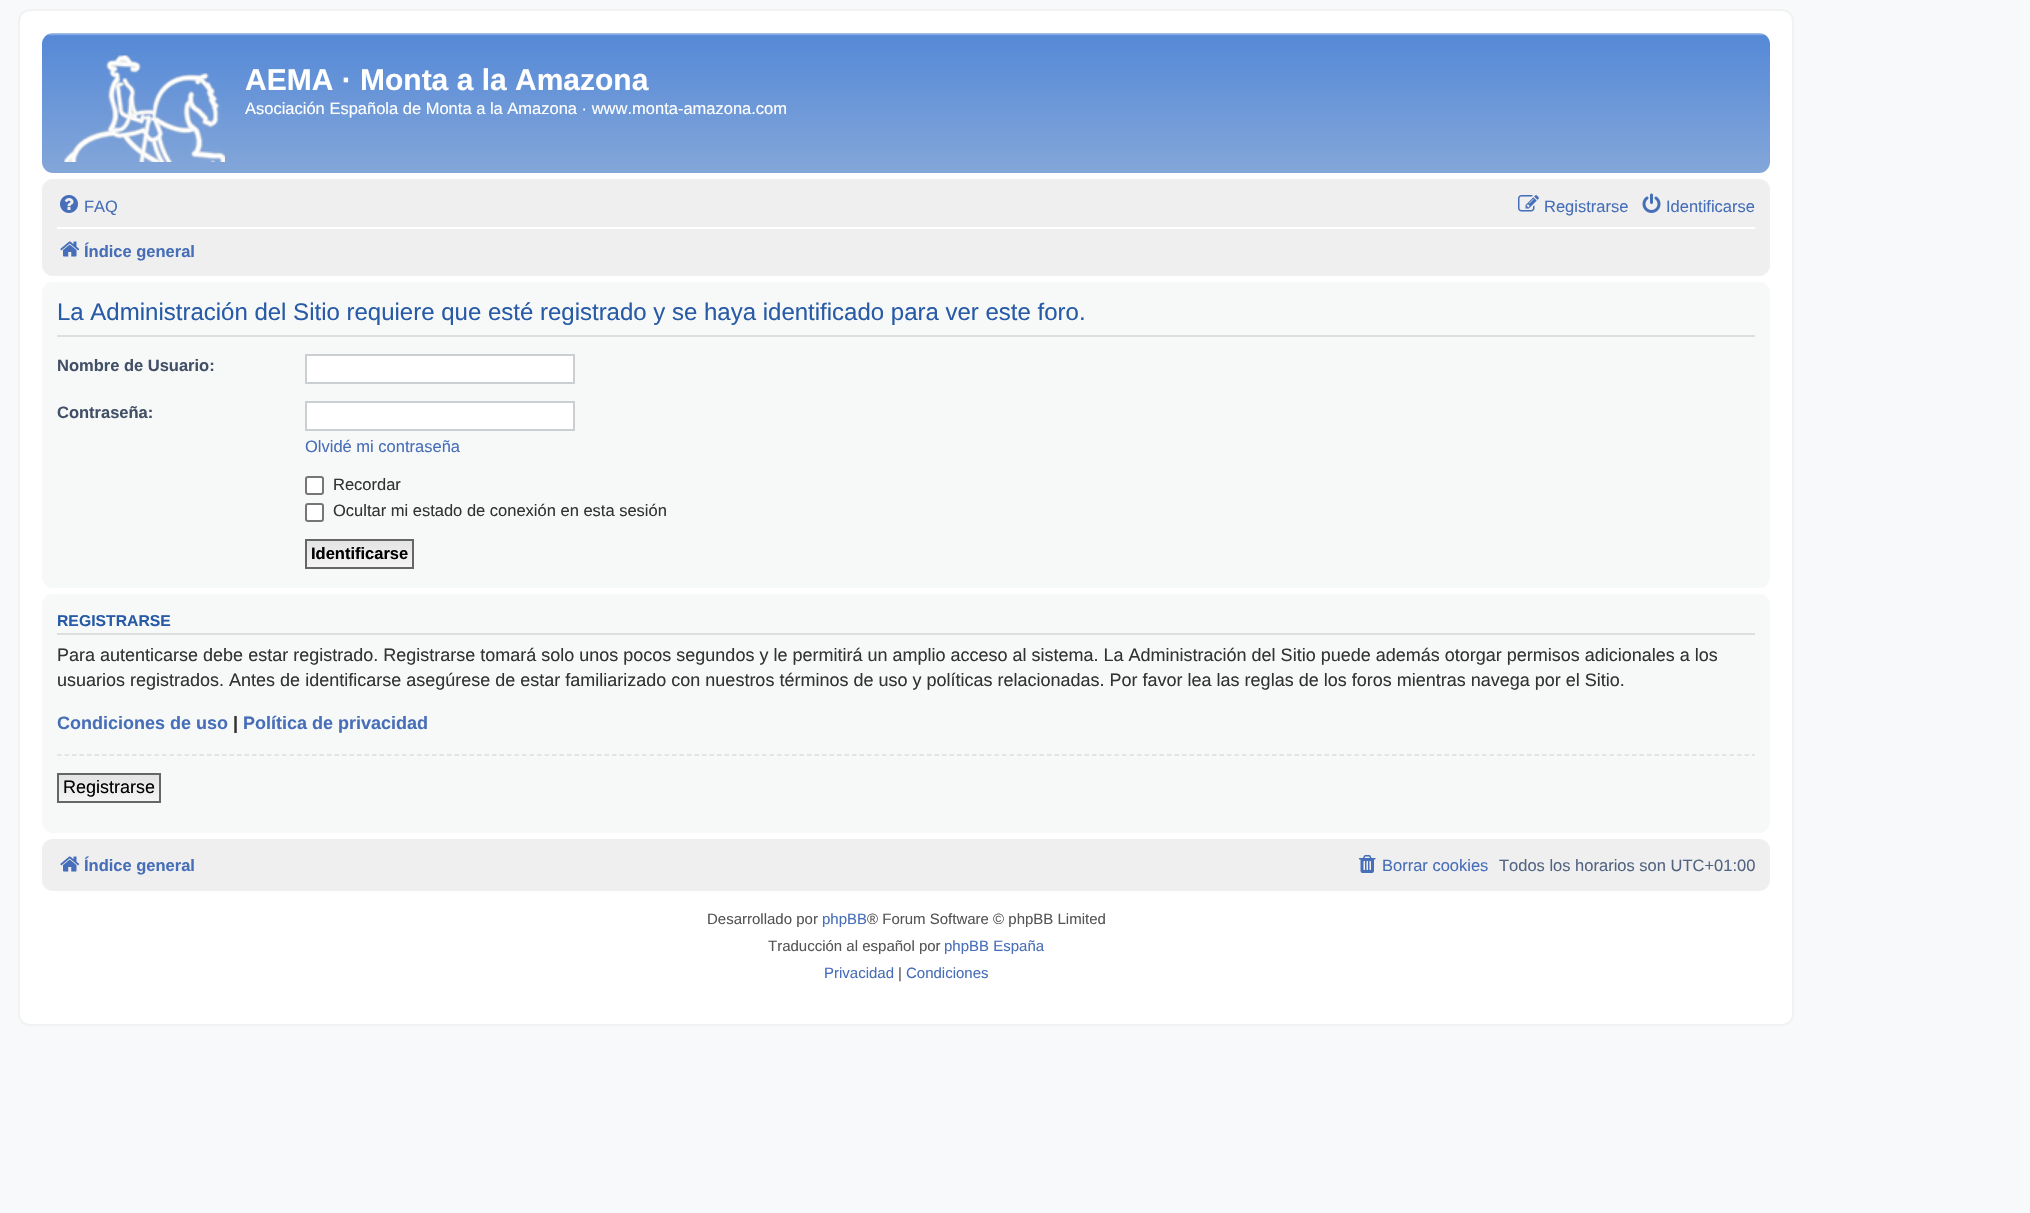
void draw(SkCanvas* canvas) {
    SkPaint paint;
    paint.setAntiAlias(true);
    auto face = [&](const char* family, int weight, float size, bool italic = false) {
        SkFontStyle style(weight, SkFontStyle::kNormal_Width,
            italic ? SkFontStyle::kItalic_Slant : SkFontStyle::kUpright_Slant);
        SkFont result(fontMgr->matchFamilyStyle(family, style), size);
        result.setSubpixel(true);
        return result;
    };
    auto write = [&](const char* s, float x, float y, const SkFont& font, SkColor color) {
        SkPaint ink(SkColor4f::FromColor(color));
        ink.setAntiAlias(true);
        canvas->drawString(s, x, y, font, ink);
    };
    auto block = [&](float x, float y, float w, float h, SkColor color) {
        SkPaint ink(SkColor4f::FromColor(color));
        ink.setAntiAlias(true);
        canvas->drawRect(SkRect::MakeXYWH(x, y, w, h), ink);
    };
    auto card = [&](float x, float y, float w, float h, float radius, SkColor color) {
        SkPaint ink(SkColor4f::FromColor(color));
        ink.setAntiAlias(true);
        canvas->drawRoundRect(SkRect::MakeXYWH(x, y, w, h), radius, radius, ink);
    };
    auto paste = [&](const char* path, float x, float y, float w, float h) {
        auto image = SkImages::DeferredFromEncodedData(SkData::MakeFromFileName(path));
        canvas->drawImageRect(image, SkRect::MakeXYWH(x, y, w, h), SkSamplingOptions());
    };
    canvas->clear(SkColorSetRGB(247, 249, 250));
    paint.setColor(SK_ColorWHITE);
    canvas->drawRoundRect(SkRect::MakeXYWH(19, 10, 1774, 1015), 11, 11, paint);
    paint.setStyle(SkPaint::kStroke_Style);
    paint.setStrokeWidth(2);
    paint.setColor(SkColorSetRGB(241, 242, 242));
    canvas->drawRoundRect(SkRect::MakeXYWH(19, 10, 1774, 1015), 11, 11, paint);
    paint.setStyle(SkPaint::kFill_Style);
    {
        const SkColor colors[] = {SkColorSetRGB(179, 203, 237), SkColorSetRGB(85, 137, 215), SkColorSetRGB(131, 166, 217), SkColorSetRGB(131, 166, 217)};
        const float stops[] = {0, 0.02f, 0.99f, 1};
        const SkPoint ends[] = {{906, 33}, {906, 173}};
        paint.setShader(SkGradientShader::MakeLinear(ends, colors, stops, 4, SkTileMode::kClamp));
        paint.setAlpha(255);
    }
    canvas->drawRoundRect(SkRect::MakeXYWH(42, 33, 1728, 140), 11, 11, paint);
    paste("pic1.png", 64, 55, 161, 107);
    auto kFont1 = face("Liberation Sans", 700, 30);
    write("AEMA · Monta a la Amazona", 245, 90, kFont1, SK_ColorWHITE);
    auto kFont2 = face("Liberation Sans", 400, 16.5f);
    write("Asociación Española de Monta a la Amazona · www.monta-amazona.com", 245, 114, kFont2, SK_ColorWHITE);
    card(42, 179, 1728, 97, 11, SkColorSetRGB(238, 239, 238));
    paste("pic2.png", 60, 195, 18, 18);
    write("FAQ", 84, 212, kFont2, SkColorSetRGB(71, 110, 184));
    paste("pic3.png", 1518, 195, 21, 17);
    write("Registrarse", 1544, 212, kFont2, SkColorSetRGB(71, 110, 184));
    paste("pic4.png", 1642, 193, 19, 20);
    write("Identificarse", 1666, 212, kFont2, SkColorSetRGB(71, 110, 184));
    block(57, 227, 1698, 2, SK_ColorWHITE);
    paste("pic5.png", 60, 241, 20, 16);
    auto kFont3 = face("Liberation Sans", 700, 16.5f);
    write("Índice general", 84, 257, kFont3, SkColorSetRGB(71, 110, 184));
    card(42, 282, 1728, 306, 11, SkColorSetRGB(247, 248, 248));
    block(57, 335, 1698, 2, SkColorSetRGB(222, 222, 222));
    auto kFont4 = face("Liberation Sans", 400, 24);
    write("La Administración del Sitio requiere que esté registrado y se haya identificado para ver este foro.", 57, 320, kFont4, SkColorSetRGB(40, 91, 167));
    write("Nombre de Usuario:", 57, 371, kFont3, SkColorSetRGB(66, 80, 103));
    paint.setShader(nullptr);
    paint.setColor(SK_ColorWHITE);
    canvas->drawRect(SkRect::MakeXYWH(306, 355, 268, 28), paint);
    paint.setStyle(SkPaint::kStroke_Style);
    paint.setColor(SkColorSetRGB(204, 207, 209));
    canvas->drawRect(SkRect::MakeXYWH(306, 355, 268, 28), paint);
    write("Contraseña:", 57, 418, kFont3, SkColorSetRGB(66, 80, 103));
    paint.setStyle(SkPaint::kFill_Style);
    paint.setColor(SK_ColorWHITE);
    canvas->drawRect(SkRect::MakeXYWH(306, 402, 268, 28), paint);
    paint.setStyle(SkPaint::kStroke_Style);
    paint.setColor(SkColorSetRGB(204, 207, 209));
    canvas->drawRect(SkRect::MakeXYWH(306, 402, 268, 28), paint);
    write("Olvidé mi contraseña", 305, 452, kFont2, SkColorSetRGB(71, 110, 184));
    paint.setStyle(SkPaint::kFill_Style);
    paint.setColor(SK_ColorWHITE);
    canvas->drawRoundRect(SkRect::MakeXYWH(306, 477, 17, 17), 2, 2, paint);
    paint.setStyle(SkPaint::kStroke_Style);
    paint.setColor(SkColorSetRGB(118, 118, 118));
    canvas->drawRoundRect(SkRect::MakeXYWH(306, 477, 17, 17), 2, 2, paint);
    write("Recordar", 333, 490, kFont2, SkColorSetRGB(51, 51, 51));
    paint.setStyle(SkPaint::kFill_Style);
    paint.setColor(SK_ColorWHITE);
    canvas->drawRoundRect(SkRect::MakeXYWH(306, 504, 17, 17), 2, 2, paint);
    paint.setStyle(SkPaint::kStroke_Style);
    paint.setColor(SkColorSetRGB(118, 118, 118));
    canvas->drawRoundRect(SkRect::MakeXYWH(306, 504, 17, 17), 2, 2, paint);
    write("Ocultar mi estado de conexión en esta sesión", 333, 516, kFont2, SkColorSetRGB(51, 51, 51));
    paint.setStyle(SkPaint::kFill_Style);
    {
        const SkColor colors[] = {SkColorSetRGB(227, 227, 227), SkColorSetRGB(244, 244, 244)};
        const float stops[] = {0, 1};
        const SkPoint ends[] = {{359, 540}, {359, 567}};
        paint.setShader(SkGradientShader::MakeLinear(ends, colors, stops, 2, SkTileMode::kClamp));
        paint.setAlpha(255);
    }
    canvas->drawRect(SkRect::MakeXYWH(307, 541, 105, 26), paint);
    paint.setStyle(SkPaint::kStroke_Style);
    paint.setShader(nullptr);
    paint.setColor(SkColorSetRGB(102, 102, 102));
    canvas->drawRect(SkRect::MakeXYWH(306, 540, 107, 28), paint);
    write("Identificarse", 311, 559, kFont3, SK_ColorBLACK);
    card(42, 594, 1728, 239, 11, SkColorSetRGB(247, 248, 248));
    block(57, 633, 1698, 2, SkColorSetRGB(222, 222, 222));
    auto kFont5 = face("Liberation Sans", 700, 15.75f);
    write("REGISTRARSE", 57, 626, kFont5, SkColorSetRGB(40, 91, 167));
    auto kFont6 = face("Liberation Sans", 400, 18);
    write("Para autenticarse debe estar registrado. Registrarse tomará solo unos pocos segundos y le permitirá un amplio acceso al sistema. La Administración del Sitio puede además otorgar permisos adicionales a los", 57, 661, kFont6, SkColorSetRGB(51, 51, 51));
    write("usuarios registrados. Antes de identificarse asegúrese de estar familiarizado con nuestros términos de uso y políticas relacionadas. Por favor lea las reglas de los foros mientras navega por el Sitio.", 57, 686, kFont6, SkColorSetRGB(51, 51, 51));
    auto kFont7 = face("Liberation Sans", 700, 18);
    write("Condiciones de uso", 57, 729, kFont7, SkColorSetRGB(71, 110, 184));
    write("|", 233, 729, kFont7, SkColorSetRGB(51, 51, 51));
    write("Política de privacidad", 243, 729, kFont7, SkColorSetRGB(71, 110, 184));
    paint.setStrokeWidth(1.5f);
    paint.setColor(SkColorSetRGB(222, 222, 222));
    paint.setPathEffect(SkDashPathEffect::Make({{4.5f, 3}}, 0));
    canvas->drawPath(SkPathBuilder().moveTo(57, 755).lineTo(1755, 755).detach(), paint);
    paint.setPathEffect(nullptr);
    paint.setStyle(SkPaint::kFill_Style);
    {
        const SkColor colors[] = {SkColorSetRGB(227, 227, 227), SkColorSetRGB(244, 244, 244)};
        const float stops[] = {0, 1};
        const SkPoint ends[] = {{109, 774}, {109, 801}};
        paint.setShader(SkGradientShader::MakeLinear(ends, colors, stops, 2, SkTileMode::kClamp));
        paint.setAlpha(255);
    }
    canvas->drawRect(SkRect::MakeXYWH(59, 775, 100, 26), paint);
    paint.setStyle(SkPaint::kStroke_Style);
    paint.setStrokeWidth(2);
    paint.setShader(nullptr);
    paint.setColor(SkColorSetRGB(102, 102, 102));
    canvas->drawRect(SkRect::MakeXYWH(58, 774, 102, 28), paint);
    write("Registrarse", 63, 793, kFont6, SK_ColorBLACK);
    card(42, 839, 1728, 52, 11, SkColorSetRGB(238, 239, 238));
    paste("pic5.png", 60, 856, 20, 16);
    write("Índice general", 84, 871, kFont3, SkColorSetRGB(71, 110, 184));
    paste("pic6.png", 1359, 855, 17, 18);
    write("Borrar cookies", 1382, 871, kFont2, SkColorSetRGB(71, 110, 184));
    write("Todos los horarios son UTC+01:00", 1499, 871, kFont2, SkColorSetRGB(83, 100, 130));
    auto kFont8 = face("Liberation Sans", 400, 15);
    write("Desarrollado por", 707, 924, kFont8, SkColorSetRGB(85, 85, 85));
    write("phpBB", 822, 924, kFont8, SkColorSetRGB(71, 110, 184));
    write("® Forum Software © phpBB Limited", 867, 924, kFont8, SkColorSetRGB(85, 85, 85));
    write("Traducción al español por", 768, 951, kFont8, SkColorSetRGB(85, 85, 85));
    write("phpBB España", 944, 951, kFont8, SkColorSetRGB(71, 110, 184));
    write("Privacidad", 824, 978, kFont8, SkColorSetRGB(71, 110, 184));
    write("|", 898, 978, kFont8, SkColorSetRGB(85, 85, 85));
    write("Condiciones", 906, 978, kFont8, SkColorSetRGB(71, 110, 184));
}
